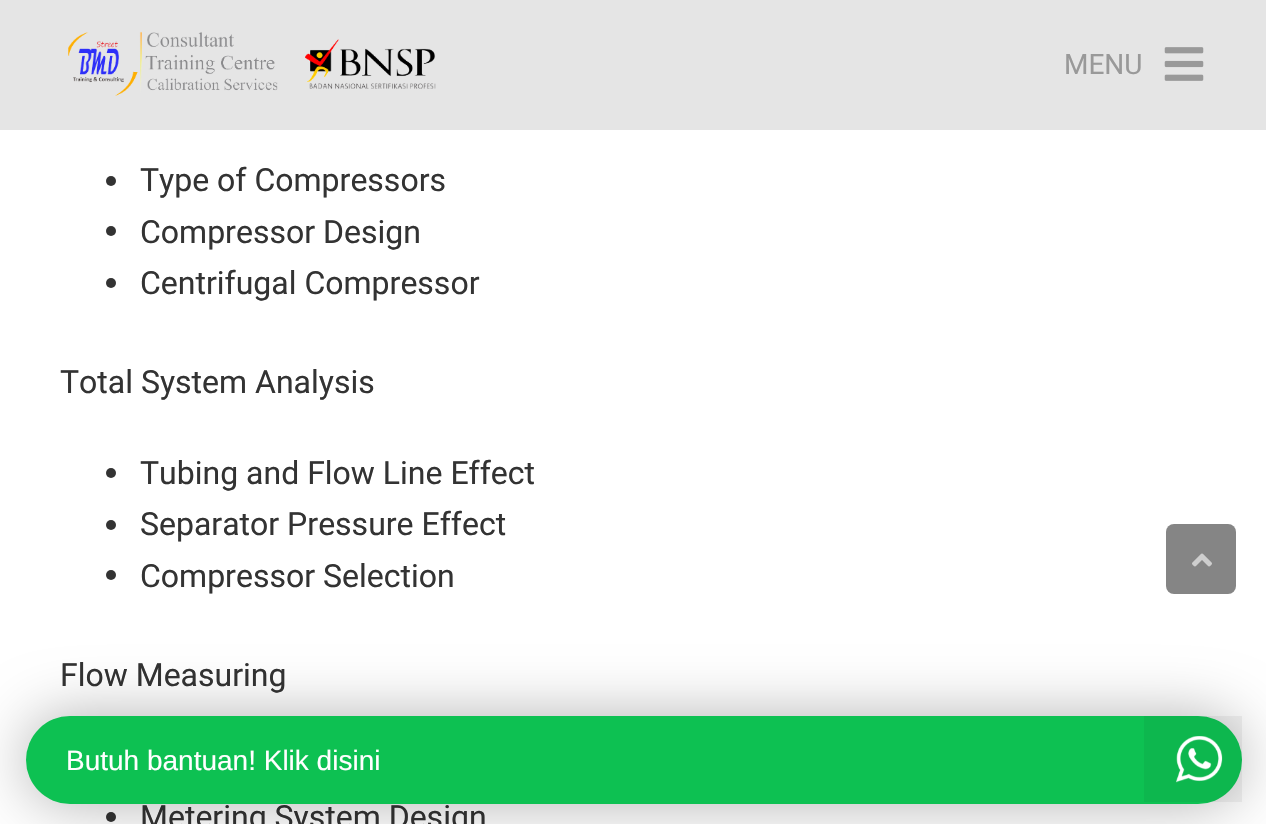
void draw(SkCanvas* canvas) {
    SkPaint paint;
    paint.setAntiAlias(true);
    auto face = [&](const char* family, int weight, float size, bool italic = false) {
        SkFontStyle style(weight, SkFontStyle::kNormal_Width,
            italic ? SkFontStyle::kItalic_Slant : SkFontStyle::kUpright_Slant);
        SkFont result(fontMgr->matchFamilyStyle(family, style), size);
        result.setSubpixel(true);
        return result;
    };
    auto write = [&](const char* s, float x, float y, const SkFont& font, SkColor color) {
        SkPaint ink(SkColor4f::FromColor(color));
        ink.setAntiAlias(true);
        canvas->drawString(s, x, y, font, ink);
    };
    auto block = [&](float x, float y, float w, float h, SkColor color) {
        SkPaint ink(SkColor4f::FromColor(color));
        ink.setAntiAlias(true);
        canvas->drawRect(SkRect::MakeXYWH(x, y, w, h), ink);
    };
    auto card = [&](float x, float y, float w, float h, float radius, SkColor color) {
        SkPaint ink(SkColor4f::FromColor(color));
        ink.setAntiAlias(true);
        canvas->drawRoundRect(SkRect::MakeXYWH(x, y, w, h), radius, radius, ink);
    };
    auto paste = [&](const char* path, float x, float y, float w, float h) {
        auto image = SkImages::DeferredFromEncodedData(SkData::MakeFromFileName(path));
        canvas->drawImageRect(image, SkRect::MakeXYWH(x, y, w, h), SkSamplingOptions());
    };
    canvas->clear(SK_ColorWHITE);
    block(0, 0, 1266, 130, SkColorSetRGB(229, 229, 229));
    paste("pic1.png", 68, 31, 368, 65);
    auto kFont1 = face("Roboto", 400, 28);
    write("MENU", 1064, 74, kFont1, SkColorSetRGB(153, 153, 153));
    paste("pic2.png", 1164, 47, 40, 34);
    paint.setColor(SkColorSetRGB(51, 51, 51));
    canvas->drawCircle(111, 181, 5, paint);
    auto kFont2 = face("Roboto", 400, 32);
    write("Type of Compressors", 140, 191, kFont2, SkColorSetRGB(51, 51, 51));
    canvas->drawCircle(111, 231, 5, paint);
    write("Compressor Design", 140, 243, kFont2, SkColorSetRGB(51, 51, 51));
    canvas->drawCircle(111, 283, 5, paint);
    write("Centrifugal Compressor", 140, 294, kFont2, SkColorSetRGB(51, 51, 51));
    write("Total System Analysis", 60, 393, kFont2, SkColorSetRGB(51, 51, 51));
    canvas->drawCircle(111, 473, 5, paint);
    write("Tubing and Flow Line Effect", 140, 484, kFont2, SkColorSetRGB(51, 51, 51));
    canvas->drawCircle(111, 525, 5, paint);
    write("Separator Pressure Effect", 140, 535, kFont2, SkColorSetRGB(51, 51, 51));
    canvas->drawCircle(111, 575, 5, paint);
    write("Compressor Selection", 140, 587, kFont2, SkColorSetRGB(51, 51, 51));
    write("Flow Measuring", 60, 686, kFont2, SkColorSetRGB(51, 51, 51));
    canvas->drawCircle(111, 817, 5, paint);
    write("Metering System Design", 140, 828, kFont2, SkColorSetRGB(51, 51, 51));
    card(1166, 524, 70, 70, 8, SkColorSetRGB(133, 133, 133));
    paste("pic3.png", 1192, 553, 20, 14);
    paint.setColor(SkColorSetARGB(77, 0, 0, 0));
    paint.setMaskFilter(SkMaskFilter::MakeBlur(kNormal_SkBlurStyle, 30));
    canvas->drawRoundRect(SkRect::MakeXYWH(26, 716, 1216, 88), 44, 44, paint);
    paint.setMaskFilter(nullptr);
    card(26, 716, 1216, 88, 44, SkColorSetRGB(13, 193, 82));
    auto kFont3 = face("Liberation Sans", 400, 28);
    write("Butuh bantuan! Klik disini", 66, 770, kFont3, SK_ColorWHITE);
    block(1144, 716, 98, 86, SkColorSetARGB(13, 0, 0, 0));
    paste("pic4.png", 1176, 736, 47, 47);
}
